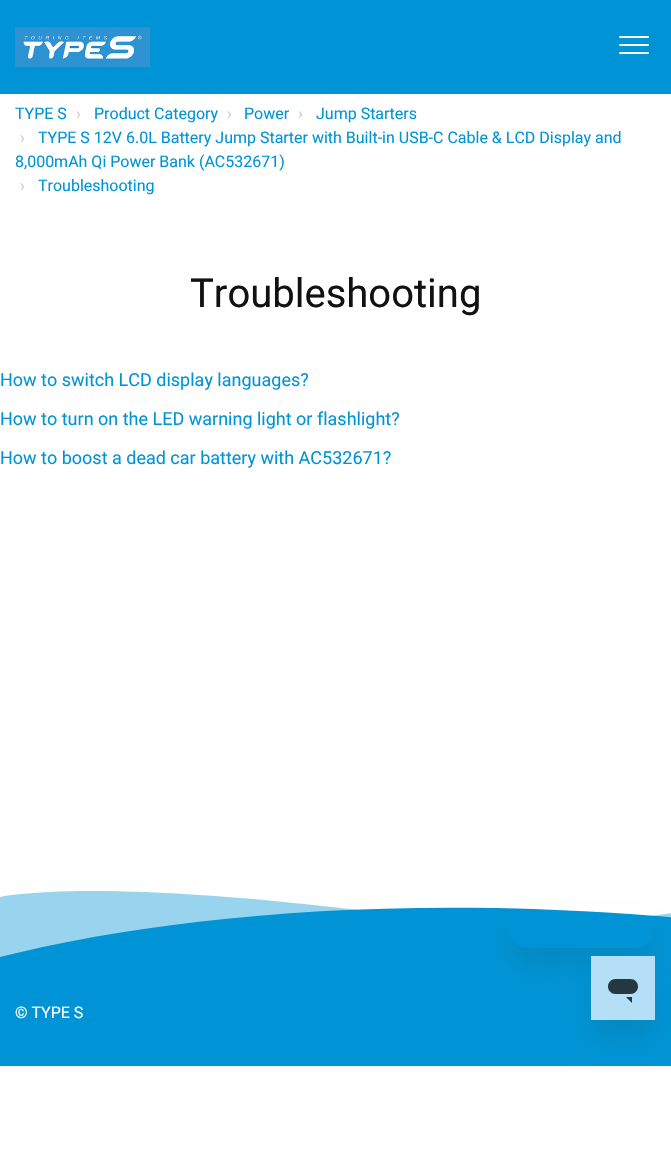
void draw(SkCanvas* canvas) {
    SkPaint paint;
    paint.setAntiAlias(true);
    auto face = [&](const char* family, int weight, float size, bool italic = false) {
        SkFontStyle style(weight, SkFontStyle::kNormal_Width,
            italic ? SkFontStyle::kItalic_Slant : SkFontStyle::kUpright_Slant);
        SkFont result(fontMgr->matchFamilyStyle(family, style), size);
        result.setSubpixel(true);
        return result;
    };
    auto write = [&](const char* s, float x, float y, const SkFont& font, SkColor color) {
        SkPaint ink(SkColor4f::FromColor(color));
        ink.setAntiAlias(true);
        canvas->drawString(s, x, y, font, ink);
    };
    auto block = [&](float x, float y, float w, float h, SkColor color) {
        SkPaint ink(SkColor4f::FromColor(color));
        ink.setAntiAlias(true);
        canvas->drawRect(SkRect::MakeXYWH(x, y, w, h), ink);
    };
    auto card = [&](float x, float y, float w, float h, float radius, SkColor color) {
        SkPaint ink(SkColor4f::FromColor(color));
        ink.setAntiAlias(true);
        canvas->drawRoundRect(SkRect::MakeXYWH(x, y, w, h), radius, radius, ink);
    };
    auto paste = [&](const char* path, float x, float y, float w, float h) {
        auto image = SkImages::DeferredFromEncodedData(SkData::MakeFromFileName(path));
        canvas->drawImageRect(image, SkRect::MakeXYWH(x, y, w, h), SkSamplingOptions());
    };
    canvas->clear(SK_ColorWHITE);
    block(0, 0, 671, 94, SkColorSetRGB(0, 148, 214));
    paste("pic1.png", 15, 27, 135, 40);
    card(619, 44, 30, 2, 1, SK_ColorWHITE);
    card(619, 36, 30, 2, 1, SK_ColorWHITE);
    card(619, 52, 30, 2, 1, SK_ColorWHITE);
    auto kFont1 = face("Roboto", 400, 16);
    write("TYPE S", 15, 119, kFont1, SkColorSetRGB(0, 148, 213));
    write("›", 76, 119, kFont1, SkColorSetRGB(204, 204, 204));
    write("Product Category", 94, 119, kFont1, SkColorSetRGB(0, 148, 213));
    write("›", 227, 119, kFont1, SkColorSetRGB(204, 204, 204));
    write("Power", 244, 119, kFont1, SkColorSetRGB(0, 148, 213));
    write("›", 298, 119, kFont1, SkColorSetRGB(204, 204, 204));
    write("Jump Starters", 316, 119, kFont1, SkColorSetRGB(0, 148, 213));
    write("›", 20, 143, kFont1, SkColorSetRGB(204, 204, 204));
    write("TYPE S 12V 6.0L Battery Jump Starter with Built-in USB-C Cable & LCD Display and", 38, 143, kFont1, SkColorSetRGB(0, 148, 213));
    write("8,000mAh Qi Power Bank (AC532671)", 15, 167, kFont1, SkColorSetRGB(0, 148, 213));
    write("›", 20, 191, kFont1, SkColorSetRGB(204, 204, 204));
    write("Troubleshooting", 38, 191, kFont1, SkColorSetRGB(0, 148, 213));
    auto kFont2 = face("Roboto", 400, 40);
    write("Troubleshooting", 190, 307, kFont2, SkColorSetRGB(17, 17, 17));
    auto kFont3 = face("Roboto", 400, 18);
    write("How to switch LCD display languages?", 0, 386, kFont3, SkColorSetRGB(0, 148, 213));
    write("How to turn on the LED warning light or flashlight?", 0, 425, kFont3, SkColorSetRGB(0, 148, 213));
    write("How to boost a dead car battery with AC532671?", 0, 464, kFont3, SkColorSetRGB(0, 148, 213));
    block(0, 976, 671, 90, SkColorSetRGB(0, 148, 214));
    canvas->save();
    canvas->clipRect(SkRect::MakeXYWH(0, 876, 671, 100));
    paint.setColor(SkColorSetARGB(102, 0, 148, 214));
    canvas->drawPath(SkPathBuilder().moveTo(-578, 950).cubicTo(-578, 950, -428, 988, -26, 970).cubicTo(377, 952, 507, 939, 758, 900).cubicTo(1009, 861, 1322, 992, 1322, 992).lineTo(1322, 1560).lineTo(-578, 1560).close().detach(), paint);
    canvas->drawPath(SkPathBuilder().moveTo(0, 897).cubicTo(0, 897, 122, 868, 552, 938).cubicTo(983, 1007, 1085, 894, 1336, 879).cubicTo(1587, 864, 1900, 927, 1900, 927).lineTo(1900, 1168).lineTo(0, 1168).close().detach(), paint);
    paint.setColor(SkColorSetRGB(0, 148, 214));
    canvas->drawPath(SkPathBuilder().moveTo(0, 957).cubicTo(151, 919, 370, 896, 630, 914).cubicTo(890, 932, 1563, 1023, 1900, 886).lineTo(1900, 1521).lineTo(0, 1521).close().detach(), paint);
    canvas->restore();
    write("© TYPE S", 15, 1018, kFont1, SK_ColorWHITE);
    canvas->save();
    canvas->clipPath(SkPathBuilder(SkPathFillType::kEvenOdd).moveTo(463, 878).lineTo(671, 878).lineTo(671, 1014).lineTo(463, 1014).close().moveTo(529, 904).lineTo(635, 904).cubicTo(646, 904, 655, 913, 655, 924).lineTo(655, 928).cubicTo(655, 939, 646, 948, 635, 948).lineTo(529, 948).cubicTo(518, 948, 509, 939, 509, 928).lineTo(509, 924).cubicTo(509, 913, 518, 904, 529, 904).close().detach(), true);
    paint.setColor(SkColorSetARGB(38, 23, 73, 77));
    paint.setMaskFilter(SkMaskFilter::MakeBlur(kNormal_SkBlurStyle, 15));
    canvas->drawRoundRect(SkRect::MakeXYWH(509, 924, 146, 44), 20, 20, paint);
    paint.setMaskFilter(nullptr);
    canvas->restore();
    paint.setMaskFilter(SkMaskFilter::MakeBlur(kNormal_SkBlurStyle, 15));
    canvas->drawRect(SkRect::MakeXYWH(591, 976, 64, 64), paint);
    paint.setMaskFilter(nullptr);
    paste("pic2.png", 591, 956, 64, 64);
}
